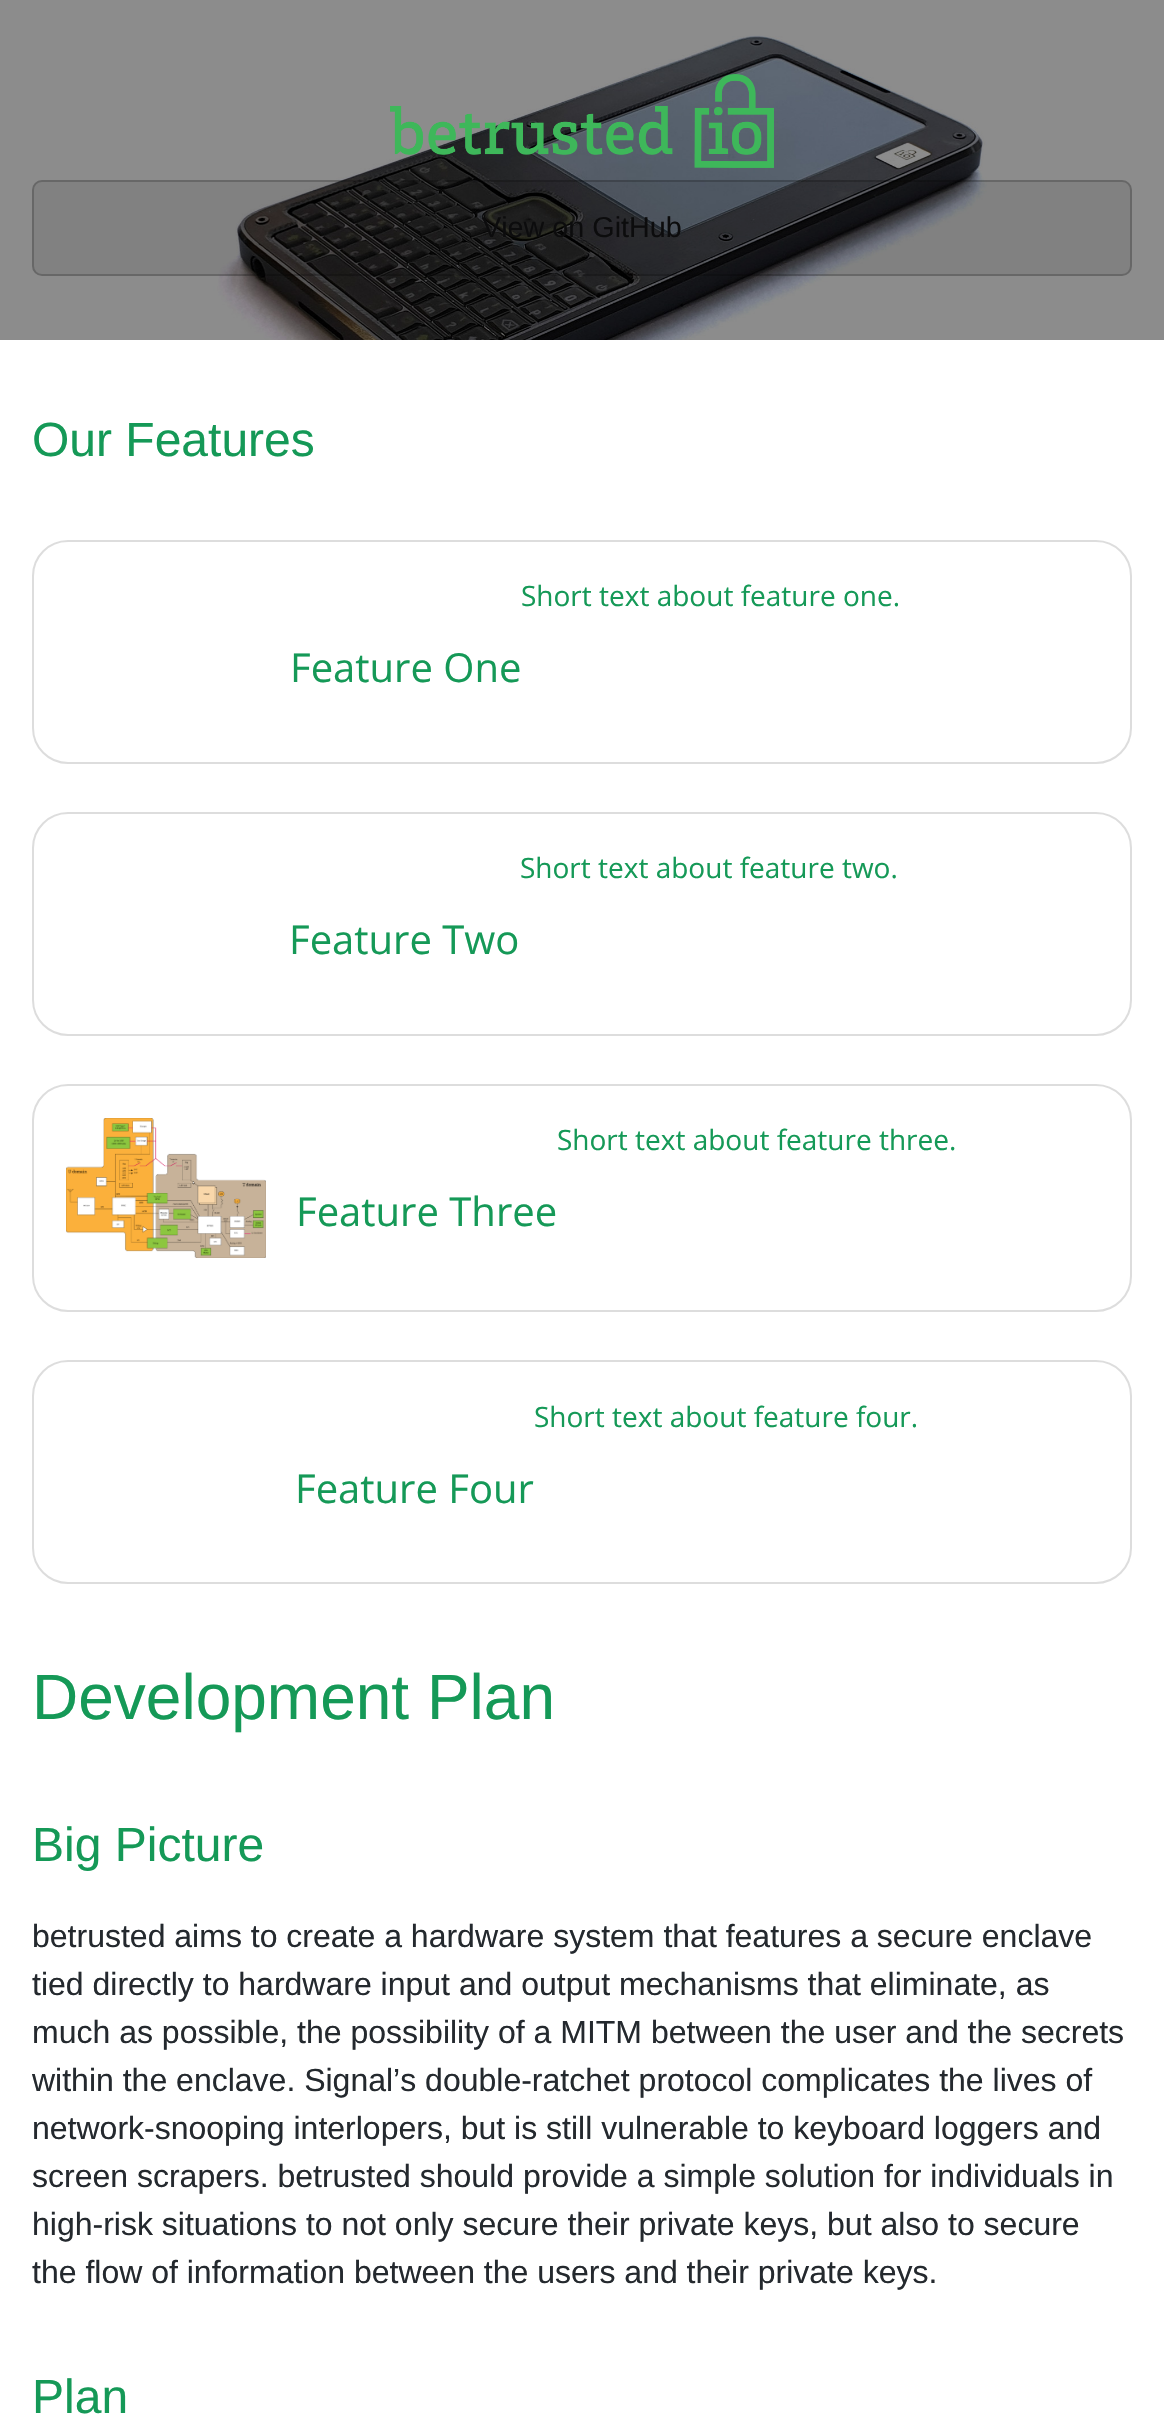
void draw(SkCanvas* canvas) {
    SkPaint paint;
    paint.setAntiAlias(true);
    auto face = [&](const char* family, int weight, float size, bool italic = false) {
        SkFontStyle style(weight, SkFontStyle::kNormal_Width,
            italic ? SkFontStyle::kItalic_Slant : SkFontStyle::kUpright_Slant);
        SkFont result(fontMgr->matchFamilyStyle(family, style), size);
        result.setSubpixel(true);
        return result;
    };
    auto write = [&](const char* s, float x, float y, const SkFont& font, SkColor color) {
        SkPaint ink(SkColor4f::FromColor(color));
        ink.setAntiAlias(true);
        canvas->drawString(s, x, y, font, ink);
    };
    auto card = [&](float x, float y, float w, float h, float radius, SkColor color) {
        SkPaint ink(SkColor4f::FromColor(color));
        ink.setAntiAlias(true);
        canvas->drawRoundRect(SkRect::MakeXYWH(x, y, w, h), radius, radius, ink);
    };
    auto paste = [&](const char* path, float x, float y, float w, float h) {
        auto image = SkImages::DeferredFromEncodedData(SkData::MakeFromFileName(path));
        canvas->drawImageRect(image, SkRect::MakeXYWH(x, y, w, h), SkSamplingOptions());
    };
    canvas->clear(SK_ColorWHITE);
    paste("pic1.png", 0, 0, 1164, 340);
    paste("pic2.png", 390, 74, 384, 94);
    card(32, 180, 1100, 96, 10, SkColorSetARGB(20, 0, 0, 0));
    paint.setStyle(SkPaint::kStroke_Style);
    paint.setStrokeWidth(2);
    paint.setColor(SkColorSetARGB(51, 0, 0, 0));
    canvas->drawRoundRect(SkRect::MakeXYWH(33, 181, 1098, 94), 9, 9, paint);
    auto kFont1 = face("Liberation Sans", 400, 28.75f);
    write("View on GitHub", 482, 237, kFont1, SkColorSetRGB(12, 12, 13));
    auto kFont2 = face("Liberation Sans", 400, 48);
    write("Our Features", 32, 456, kFont2, SkColorSetRGB(21, 153, 87));
    paint.setColor(SkColorSetRGB(221, 221, 221));
    canvas->drawRoundRect(SkRect::MakeXYWH(33, 541, 1098, 222), 35, 35, paint);
    auto kFont3 = face("Open Sans", 400, 28);
    write("Short text about feature one.", 521, 606, kFont3, SkColorSetRGB(21, 153, 87));
    auto kFont4 = face("Open Sans", 400, 40);
    write("Feature One", 290, 682, kFont4, SkColorSetRGB(21, 153, 87));
    canvas->drawRoundRect(SkRect::MakeXYWH(33, 813, 1098, 222), 35, 35, paint);
    write("Short text about feature two.", 520, 878, kFont3, SkColorSetRGB(21, 153, 87));
    write("Feature Two", 289, 954, kFont4, SkColorSetRGB(21, 153, 87));
    canvas->drawRoundRect(SkRect::MakeXYWH(33, 1085, 1098, 226), 35, 35, paint);
    paste("pic3.png", 66, 1118, 200, 140);
    write("Short text about feature three.", 557, 1150, kFont3, SkColorSetRGB(21, 153, 87));
    write("Feature Three", 296, 1226, kFont4, SkColorSetRGB(21, 153, 87));
    canvas->drawRoundRect(SkRect::MakeXYWH(33, 1361, 1098, 222), 35, 35, paint);
    write("Short text about feature four.", 534, 1427, kFont3, SkColorSetRGB(21, 153, 87));
    write("Feature Four", 295, 1503, kFont4, SkColorSetRGB(21, 153, 87));
    auto kFont5 = face("Liberation Sans", 400, 64);
    write("Development Plan", 32, 1719, kFont5, SkColorSetRGB(21, 153, 87));
    write("Big Picture", 32, 1861, kFont2, SkColorSetRGB(21, 153, 87));
    auto kFont6 = face("Liberation Sans", 400, 32);
    write("betrusted aims to create a hardware system that features a secure enclave", 32, 1947, kFont6, SkColorSetRGB(36, 41, 46));
    write("tied directly to hardware input and output mechanisms that eliminate, as", 32, 1995, kFont6, SkColorSetRGB(36, 41, 46));
    write("much as possible, the possibility of a MITM between the user and the secrets", 32, 2043, kFont6, SkColorSetRGB(36, 41, 46));
    write("within the enclave. Signal’s double-ratchet protocol complicates the lives of", 32, 2091, kFont6, SkColorSetRGB(36, 41, 46));
    write("network-snooping interlopers, but is still vulnerable to keyboard loggers and", 32, 2139, kFont6, SkColorSetRGB(36, 41, 46));
    write("screen scrapers. betrusted should provide a simple solution for individuals in", 32, 2187, kFont6, SkColorSetRGB(36, 41, 46));
    write("high-risk situations to not only secure their private keys, but also to secure", 32, 2235, kFont6, SkColorSetRGB(36, 41, 46));
    write("the flow of information between the users and their private keys.", 32, 2283, kFont6, SkColorSetRGB(36, 41, 46));
    write("Plan", 32, 2413, kFont2, SkColorSetRGB(21, 153, 87));
}
